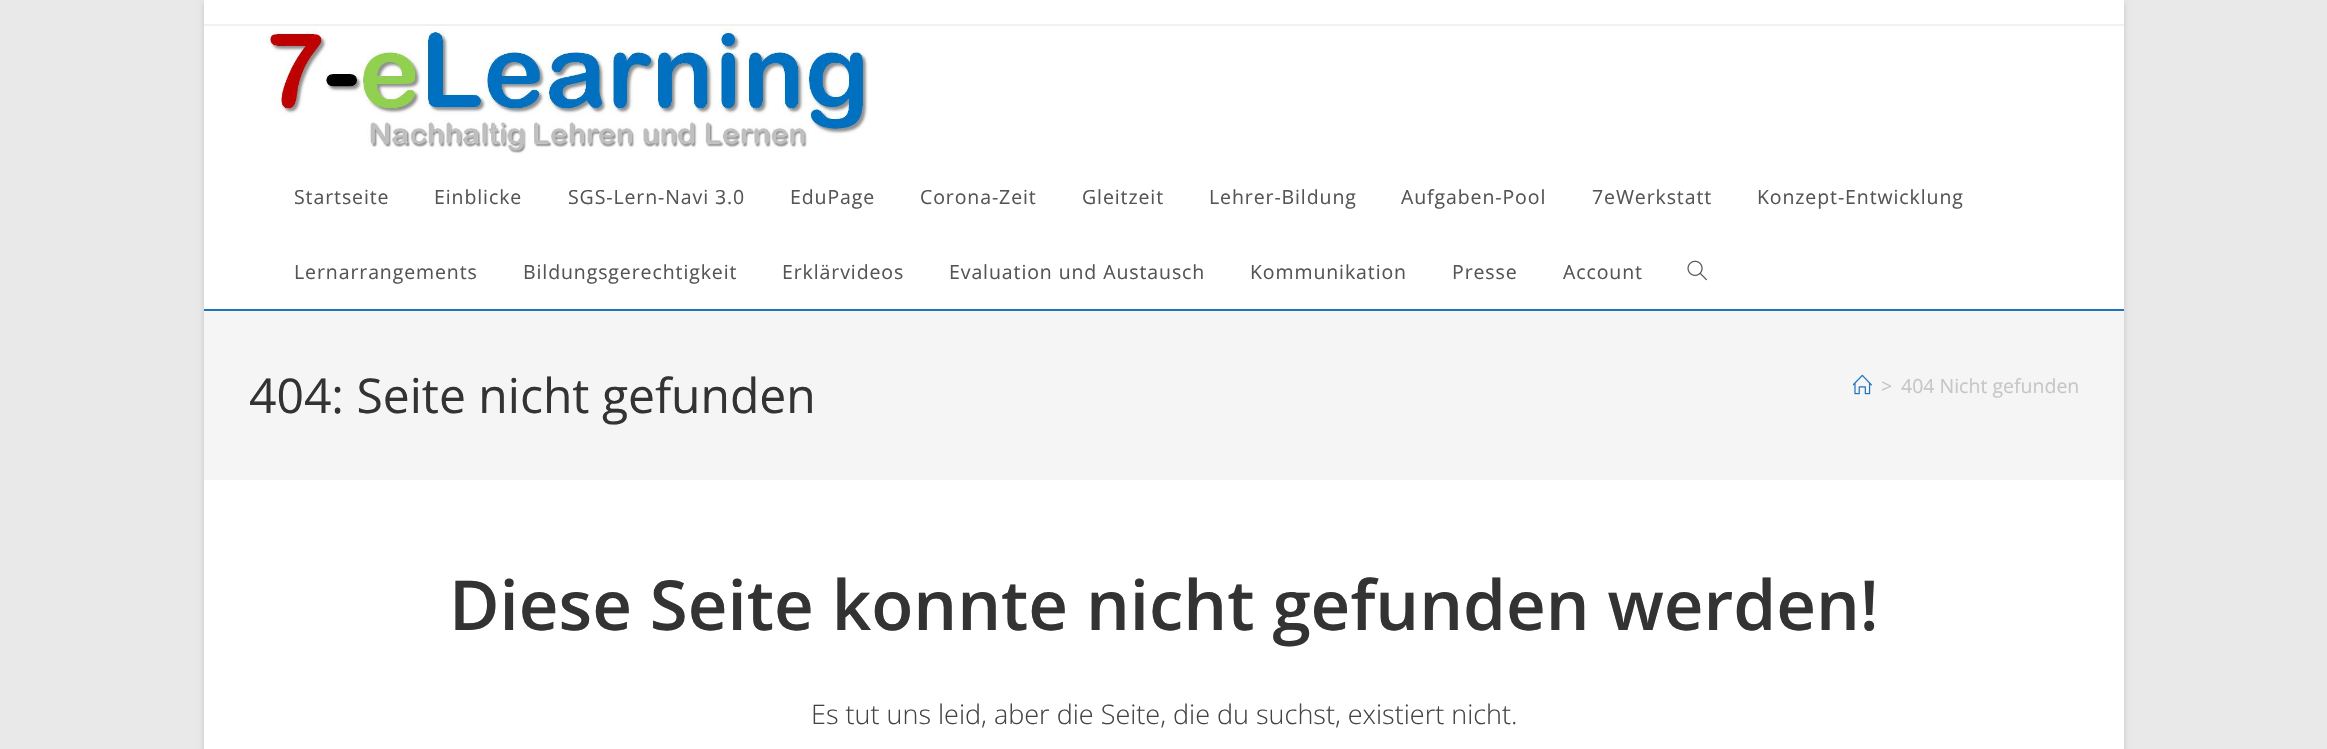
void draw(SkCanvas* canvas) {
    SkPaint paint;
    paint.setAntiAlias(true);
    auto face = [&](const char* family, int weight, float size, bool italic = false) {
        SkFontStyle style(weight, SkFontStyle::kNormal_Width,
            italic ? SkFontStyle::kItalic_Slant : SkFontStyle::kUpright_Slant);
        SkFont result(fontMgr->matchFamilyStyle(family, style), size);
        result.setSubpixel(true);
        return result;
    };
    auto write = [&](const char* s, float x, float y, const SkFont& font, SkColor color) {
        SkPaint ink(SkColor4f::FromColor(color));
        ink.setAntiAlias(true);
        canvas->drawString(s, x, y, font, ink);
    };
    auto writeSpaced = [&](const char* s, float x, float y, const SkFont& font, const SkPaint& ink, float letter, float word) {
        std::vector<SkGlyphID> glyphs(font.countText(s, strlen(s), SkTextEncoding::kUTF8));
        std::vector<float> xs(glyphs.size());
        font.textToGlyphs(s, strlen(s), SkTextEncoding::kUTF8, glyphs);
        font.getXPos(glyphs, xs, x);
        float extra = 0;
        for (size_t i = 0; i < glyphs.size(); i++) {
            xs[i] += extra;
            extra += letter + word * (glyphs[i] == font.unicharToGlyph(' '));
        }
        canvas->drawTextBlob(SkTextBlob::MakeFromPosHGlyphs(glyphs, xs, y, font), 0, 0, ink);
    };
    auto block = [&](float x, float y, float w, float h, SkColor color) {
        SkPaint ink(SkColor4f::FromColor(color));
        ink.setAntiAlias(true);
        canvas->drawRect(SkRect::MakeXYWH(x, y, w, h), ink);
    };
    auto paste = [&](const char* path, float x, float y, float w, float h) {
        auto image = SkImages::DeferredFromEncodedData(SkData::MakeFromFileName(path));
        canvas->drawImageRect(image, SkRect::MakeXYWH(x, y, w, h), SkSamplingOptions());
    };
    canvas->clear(SkColorSetRGB(233, 233, 233));
    paint.setColor(SkColorSetARGB(38, 0, 0, 0));
    paint.setMaskFilter(SkMaskFilter::MakeBlur(kNormal_SkBlurStyle, 3));
    canvas->drawRect(SkRect::MakeXYWH(204, 2, 1920, 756), paint);
    paint.setMaskFilter(nullptr);
    block(204, 26, 1920, 723, SK_ColorWHITE);
    block(204, 0, 1920, 24, SK_ColorWHITE);
    block(204, 24, 1920, 2, SkColorSetRGB(241, 241, 241));
    block(204, 309, 1920, 2, SkColorSetRGB(30, 115, 190));
    paste("pic1.png", 267, 26, 601, 128);
    auto kFont1 = face("Open Sans", 400, 19.5f);
    paint.setColor(SkColorSetRGB(85, 85, 85));
    writeSpaced("Startseite", 294, 204, kFont1, paint, 0.9f, 0);
    writeSpaced("Einblicke", 434, 204, kFont1, paint, 0.9f, 0);
    writeSpaced("SGS-Lern-Navi 3.0", 568, 204, kFont1, paint, 0.9f, 0);
    writeSpaced("EduPage", 790, 204, kFont1, paint, 0.9f, 0);
    writeSpaced("Corona-Zeit", 920, 204, kFont1, paint, 0.9f, 0);
    writeSpaced("Gleitzeit", 1082, 204, kFont1, paint, 0.9f, 0);
    writeSpaced("Lehrer-Bildung", 1209, 204, kFont1, paint, 0.9f, 0);
    writeSpaced("Aufgaben-Pool", 1401, 204, kFont1, paint, 0.9f, 0);
    writeSpaced("7eWerkstatt", 1592, 204, kFont1, paint, 0.9f, 0);
    writeSpaced("Konzept-Entwicklung", 1757, 204, kFont1, paint, 0.9f, 0);
    writeSpaced("Lernarrangements", 294, 279, kFont1, paint, 0.9f, 0);
    writeSpaced("Bildungsgerechtigkeit", 523, 279, kFont1, paint, 0.9f, 0);
    writeSpaced("Erklärvideos", 782, 279, kFont1, paint, 0.9f, 0);
    writeSpaced("Evaluation und Austausch", 949, 279, kFont1, paint, 0.9f, 0);
    writeSpaced("Kommunikation", 1250, 279, kFont1, paint, 0.9f, 0);
    writeSpaced("Presse", 1452, 279, kFont1, paint, 0.9f, 0);
    writeSpaced("Account", 1563, 279, kFont1, paint, 0.9f, 0);
    paste("pic2.png", 1687, 260, 20, 21);
    block(204, 311, 1920, 169, SkColorSetRGB(245, 245, 245));
    auto kFont2 = face("Open Sans", 400, 48);
    write("404: Seite nicht gefunden", 249, 413, kFont2, SkColorSetRGB(51, 51, 51));
    paste("pic3.png", 1853, 374, 19, 21);
    write(">", 1881, 393, kFont1, SkColorSetRGB(198, 198, 198));
    write("404 Nicht gefunden", 1901, 393, kFont1, SkColorSetRGB(198, 198, 198));
    auto kFont3 = face("Open Sans", 600, 69);
    write("Diese Seite konnte nicht gefunden werden!", 449, 630, kFont3, SkColorSetRGB(51, 51, 51));
    auto kFont4 = face("Open Sans", 300, 27);
    write("Es tut uns leid, aber die Seite, die du suchst, existiert nicht.", 811, 724, kFont4, SkColorSetRGB(68, 68, 68));
}
